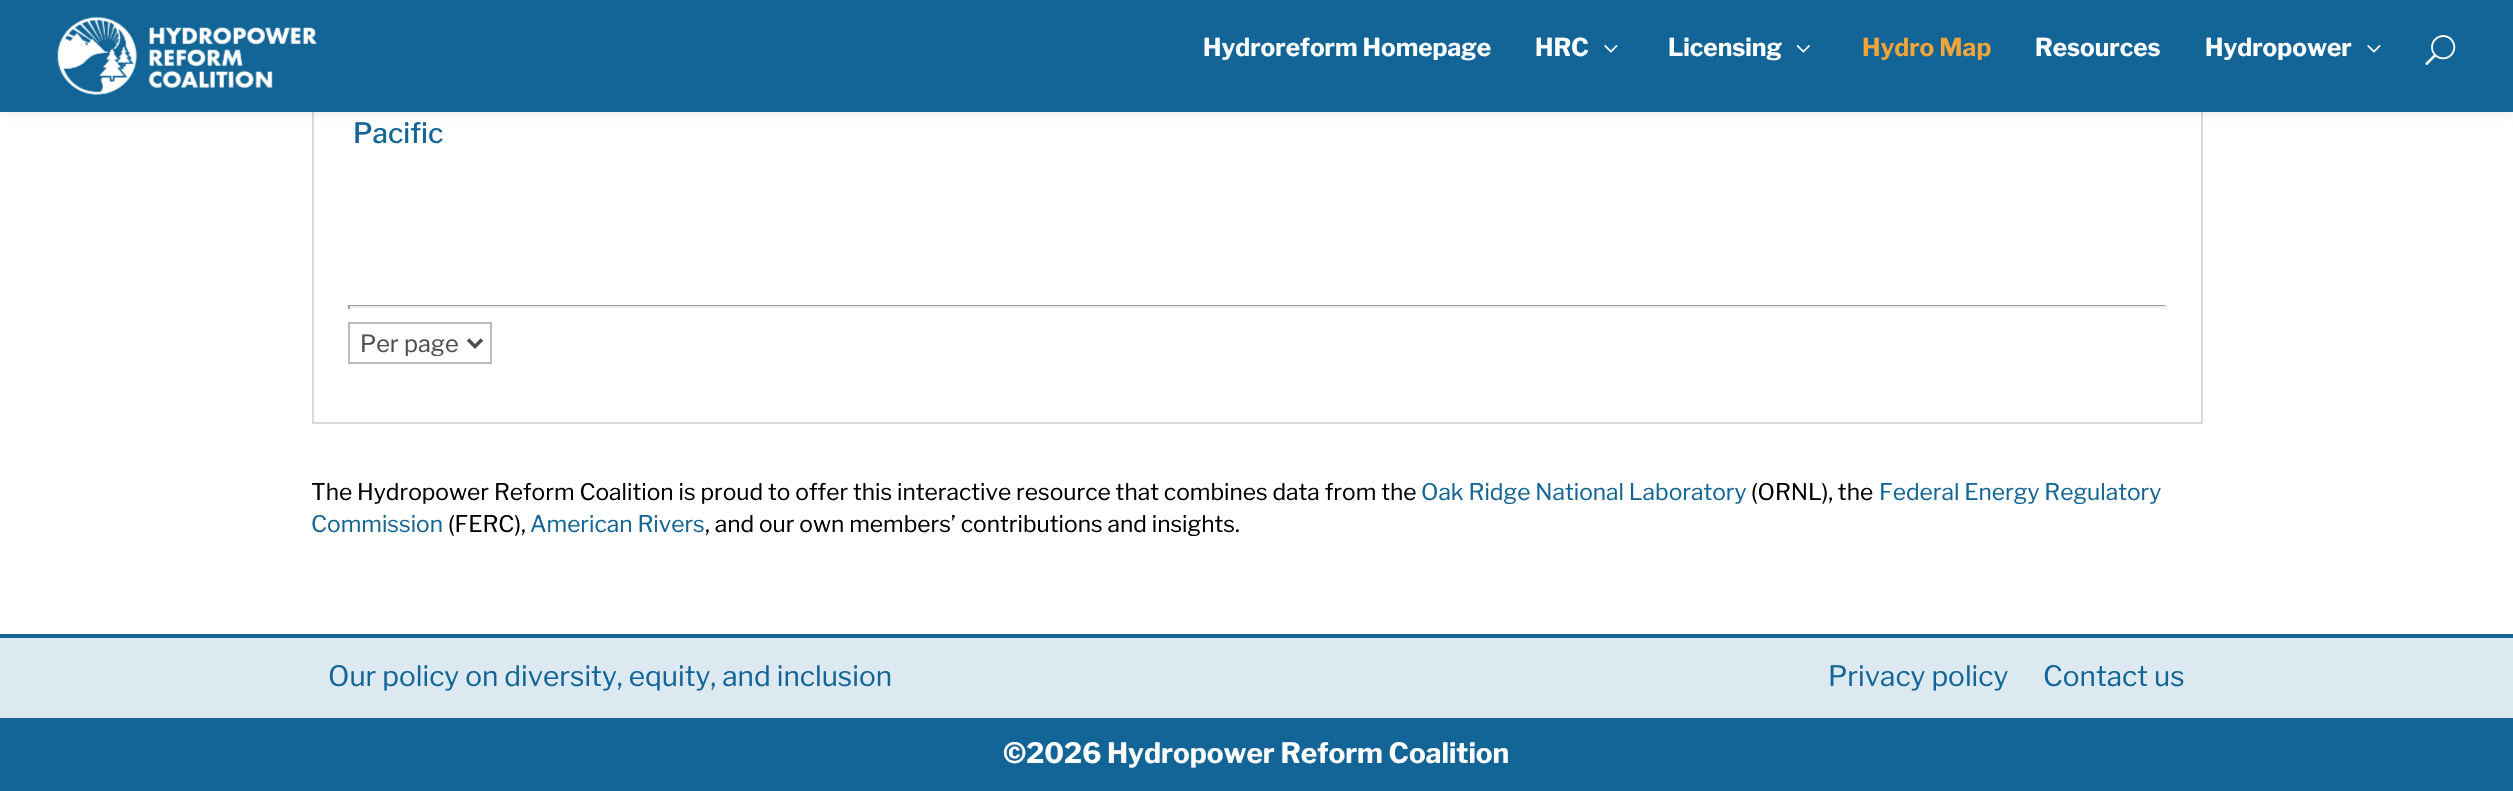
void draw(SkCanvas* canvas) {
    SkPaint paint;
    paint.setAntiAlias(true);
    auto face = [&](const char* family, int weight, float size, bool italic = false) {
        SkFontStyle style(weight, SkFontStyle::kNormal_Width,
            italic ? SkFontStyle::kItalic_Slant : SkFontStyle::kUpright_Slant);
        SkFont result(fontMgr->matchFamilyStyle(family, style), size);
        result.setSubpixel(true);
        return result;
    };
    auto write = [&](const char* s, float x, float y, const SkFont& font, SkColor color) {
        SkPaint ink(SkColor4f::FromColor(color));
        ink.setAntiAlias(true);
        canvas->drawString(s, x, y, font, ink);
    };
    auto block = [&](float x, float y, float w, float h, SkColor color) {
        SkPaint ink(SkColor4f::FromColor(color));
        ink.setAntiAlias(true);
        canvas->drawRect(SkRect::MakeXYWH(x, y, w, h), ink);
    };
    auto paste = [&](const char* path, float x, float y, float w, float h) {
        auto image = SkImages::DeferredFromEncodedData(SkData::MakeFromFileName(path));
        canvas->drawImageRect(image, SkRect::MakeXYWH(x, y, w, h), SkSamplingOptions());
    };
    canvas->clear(SK_ColorWHITE);
    paint.setStyle(SkPaint::kStroke_Style);
    paint.setStrokeWidth(2);
    paint.setColor(SkColorSetRGB(217, 217, 217));
    canvas->drawRect(SkRect::MakeXYWH(313, -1, 1889, 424), paint);
    paint.setStyle(SkPaint::kFill_Style);
    paint.setColor(SkColorSetARGB(26, 0, 0, 0));
    paint.setMaskFilter(SkMaskFilter::MakeBlur(kNormal_SkBlurStyle, 6));
    canvas->drawRect(SkRect::MakeXYWH(0, 0, 2513, 112), paint);
    paint.setMaskFilter(nullptr);
    block(0, 0, 2513, 112, SkColorSetRGB(18, 101, 150));
    paste("pic1.png", 57, 16, 260, 79);
    auto kFont1 = face("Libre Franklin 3", 100, 24.5f);
    write("Hydroreform Homepage", 1203, 56, kFont1, SK_ColorWHITE);
    write("HRC", 1535, 56, kFont1, SK_ColorWHITE);
    paste("pic2.png", 1604, 45, 14, 8);
    write("Licensing", 1668, 56, kFont1, SK_ColorWHITE);
    paste("pic3.png", 1796, 45, 14, 8);
    write("Hydro Map", 1862, 56, kFont1, SkColorSetRGB(241, 164, 56));
    write("Resources", 2035, 56, kFont1, SK_ColorWHITE);
    write("Hydropower", 2205, 56, kFont1, SK_ColorWHITE);
    paste("pic2.png", 2367, 45, 14, 8);
    paste("pic4.png", 2425, 35, 31, 30);
    auto kFont2 = face("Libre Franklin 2", 100, 28);
    write("Pacific", 353, 143, kFont2, SkColorSetRGB(18, 101, 150));
    block(348, 305, 1819, 1, SkColorSetRGB(159, 159, 159));
    block(2165, 305, 2, 4, SkColorSetRGB(238, 238, 238));
    block(348, 306, 1819, 2, SkColorSetRGB(238, 238, 238));
    block(348, 305, 2, 4, SkColorSetRGB(159, 159, 159));
    paint.setStyle(SkPaint::kStroke_Style);
    paint.setColor(SkColorSetRGB(187, 187, 187));
    canvas->drawRect(SkRect::MakeXYWH(349, 323, 142, 40), paint);
    paint.setStrokeWidth(3.5f);
    paint.setColor(SkColorSetRGB(78, 78, 78));
    canvas->drawPath(SkPathBuilder().moveTo(468, 339.5f).lineTo(475, 346.5f).lineTo(482, 339.5f).detach(), paint);
    auto kFont3 = face("Libre Franklin", 100, 23.5f);
    write("Per page", 360, 352, kFont3, SkColorSetRGB(78, 78, 78));
    auto kFont4 = face("Libre Franklin", 100, 22.75f);
    write("The Hydropower Reform Coalition is proud to offer this interactive resource that combines data from the", 311, 500, kFont4, SK_ColorBLACK);
    write("Oak Ridge National Laboratory", 1421, 500, kFont4, SkColorSetRGB(18, 101, 150));
    write("(ORNL), the", 1751, 500, kFont4, SK_ColorBLACK);
    write("Federal Energy Regulatory", 1879, 500, kFont4, SkColorSetRGB(18, 101, 150));
    write("Commission", 311, 532, kFont4, SkColorSetRGB(18, 101, 150));
    write("(FERC),", 448, 532, kFont4, SK_ColorBLACK);
    write("American Rivers", 530, 532, kFont4, SkColorSetRGB(18, 101, 150));
    write(", and our own members’ contributions and insights.", 705, 532, kFont4, SK_ColorBLACK);
    block(0, 638, 2513, 80, SkColorSetRGB(221, 233, 240));
    block(0, 634, 2513, 4, SkColorSetRGB(18, 101, 150));
    auto kFont5 = face("Libre Franklin", 100, 28);
    write("Our policy on diversity, equity, and inclusion", 328, 686, kFont5, SkColorSetRGB(18, 101, 150));
    write("Privacy policy", 1828, 686, kFont5, SkColorSetRGB(18, 101, 150));
    write("Contact us", 2043, 686, kFont5, SkColorSetRGB(18, 101, 150));
    block(0, 718, 2513, 73, SkColorSetRGB(18, 101, 150));
    auto kFont6 = face("Libre Franklin 3", 100, 28);
    write("©2026 Hydropower Reform Coalition", 1003, 763, kFont6, SK_ColorWHITE);
}
